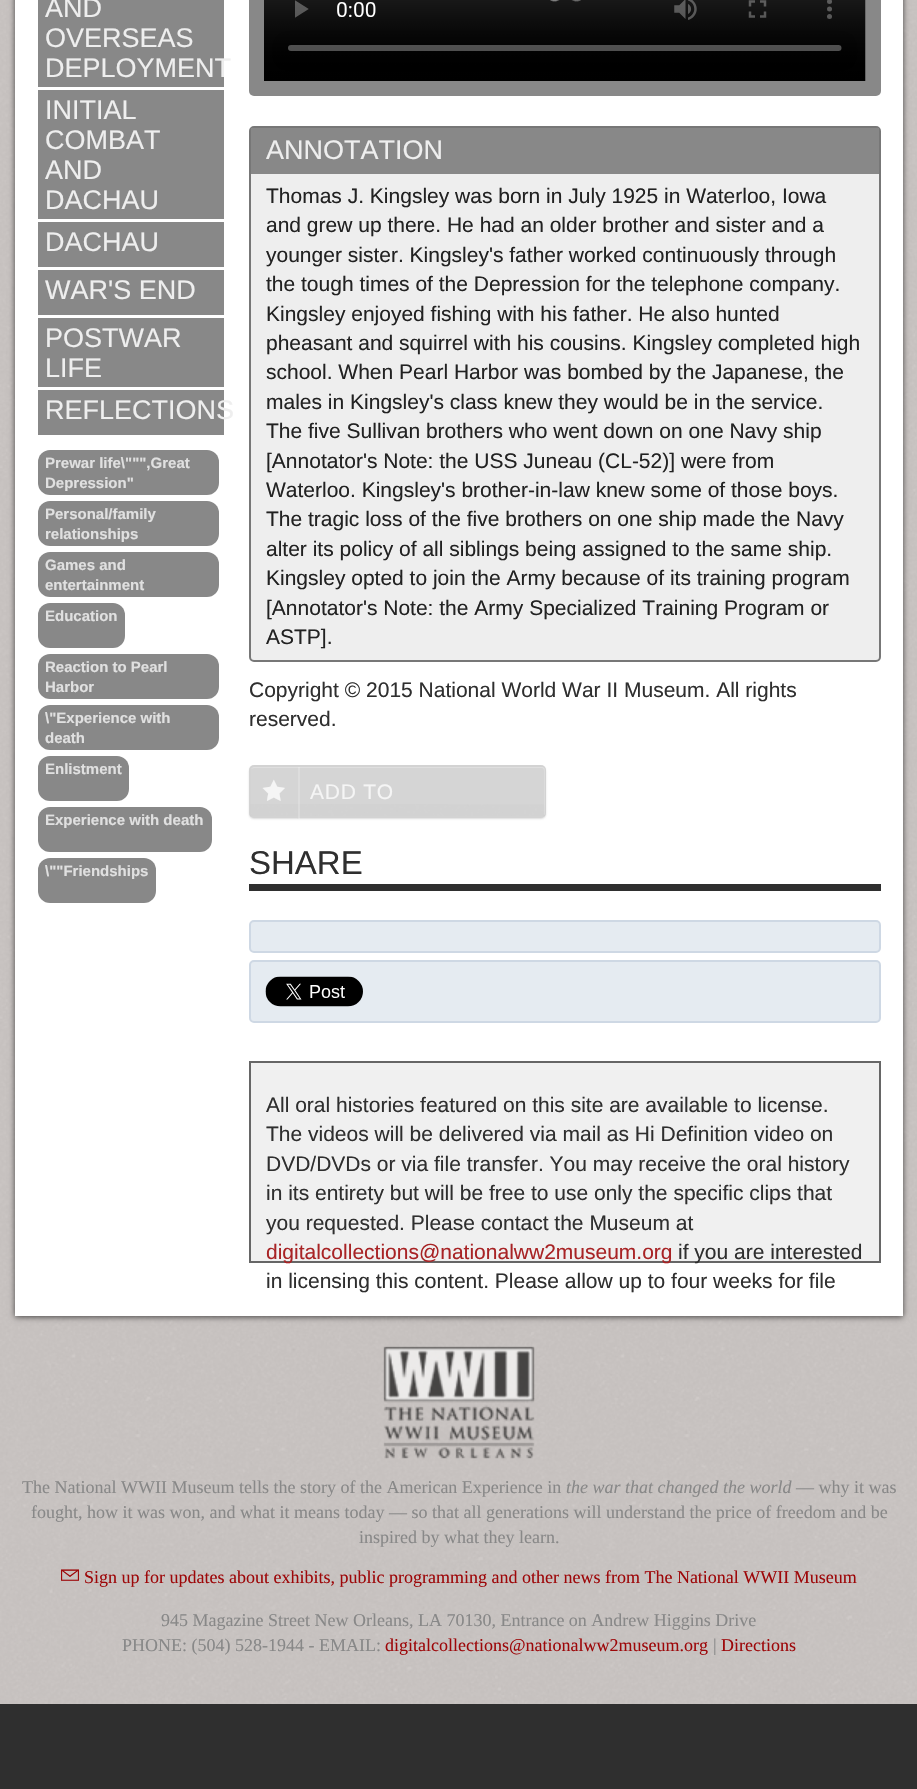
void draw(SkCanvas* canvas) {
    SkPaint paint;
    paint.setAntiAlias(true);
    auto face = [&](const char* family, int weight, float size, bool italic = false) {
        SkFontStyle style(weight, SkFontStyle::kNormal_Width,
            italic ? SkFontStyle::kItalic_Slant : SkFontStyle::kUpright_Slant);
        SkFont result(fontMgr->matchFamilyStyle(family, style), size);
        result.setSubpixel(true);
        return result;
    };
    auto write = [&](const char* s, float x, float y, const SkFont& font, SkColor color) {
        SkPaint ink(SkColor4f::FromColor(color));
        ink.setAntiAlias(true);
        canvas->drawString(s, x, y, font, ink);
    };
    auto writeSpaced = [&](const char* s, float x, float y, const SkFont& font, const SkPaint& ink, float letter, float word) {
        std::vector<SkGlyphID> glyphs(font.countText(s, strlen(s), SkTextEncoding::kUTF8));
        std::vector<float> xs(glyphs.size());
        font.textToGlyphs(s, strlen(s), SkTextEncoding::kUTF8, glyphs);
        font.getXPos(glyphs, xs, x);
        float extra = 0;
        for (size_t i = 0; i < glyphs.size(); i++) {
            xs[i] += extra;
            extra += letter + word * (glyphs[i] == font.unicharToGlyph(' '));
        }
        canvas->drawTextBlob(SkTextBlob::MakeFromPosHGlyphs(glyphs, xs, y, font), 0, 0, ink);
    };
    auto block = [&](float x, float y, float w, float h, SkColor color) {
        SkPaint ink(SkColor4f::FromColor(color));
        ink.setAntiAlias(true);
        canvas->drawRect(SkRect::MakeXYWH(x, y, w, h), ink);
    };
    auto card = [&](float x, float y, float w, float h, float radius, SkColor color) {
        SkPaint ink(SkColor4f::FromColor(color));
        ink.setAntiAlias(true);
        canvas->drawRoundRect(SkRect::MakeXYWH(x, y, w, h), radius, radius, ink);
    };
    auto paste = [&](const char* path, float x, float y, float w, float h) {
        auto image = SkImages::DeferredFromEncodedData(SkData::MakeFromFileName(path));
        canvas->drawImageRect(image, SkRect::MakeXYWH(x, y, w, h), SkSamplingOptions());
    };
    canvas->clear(SkColorSetRGB(203, 198, 195));
    paste("pic1.png", 0, 0, 917, 1704);
    paint.setColor(SkColorSetARGB(166, 0, 0, 0));
    paint.setMaskFilter(SkMaskFilter::MakeBlur(kNormal_SkBlurStyle, 3));
    canvas->drawRect(SkRect::MakeXYWH(15, -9, 888, 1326), paint);
    paint.setMaskFilter(nullptr);
    block(15, 0, 888, 1316, SK_ColorWHITE);
    block(38, 0, 186, 87, SkColorSetRGB(136, 136, 136));
    auto kFont1 = face("Liberation Sans", 400, 27);
    write("AND", 45, 17, kFont1, SkColorSetRGB(238, 238, 238));
    write("OVERSEAS", 45, 47, kFont1, SkColorSetRGB(238, 238, 238));
    write("DEPLOYMENT", 45, 77, kFont1, SkColorSetRGB(238, 238, 238));
    block(38, 90, 186, 129, SkColorSetRGB(136, 136, 136));
    write("INITIAL", 45, 119, kFont1, SkColorSetRGB(238, 238, 238));
    write("COMBAT", 45, 149, kFont1, SkColorSetRGB(238, 238, 238));
    write("AND", 45, 179, kFont1, SkColorSetRGB(238, 238, 238));
    write("DACHAU", 45, 209, kFont1, SkColorSetRGB(238, 238, 238));
    block(38, 222, 186, 45, SkColorSetRGB(136, 136, 136));
    write("DACHAU", 45, 251, kFont1, SkColorSetRGB(238, 238, 238));
    block(38, 270, 186, 45, SkColorSetRGB(136, 136, 136));
    write("WAR'S END", 45, 299, kFont1, SkColorSetRGB(238, 238, 238));
    block(38, 318, 186, 69, SkColorSetRGB(136, 136, 136));
    write("POSTWAR", 45, 347, kFont1, SkColorSetRGB(238, 238, 238));
    write("LIFE", 45, 377, kFont1, SkColorSetRGB(238, 238, 238));
    block(38, 390, 186, 45, SkColorSetRGB(136, 136, 136));
    write("REFLECTIONS", 45, 419, kFont1, SkColorSetRGB(238, 238, 238));
    card(38, 450, 181, 45, 12, SkColorSetRGB(136, 136, 136));
    auto kFont2 = face("Liberation Sans", 700, 15);
    write("Prewar life\\\"\"\",Great", 45, 468, kFont2, SkColorSetRGB(224, 224, 224));
    write("Depression\"", 45, 488, kFont2, SkColorSetRGB(224, 224, 224));
    card(38, 501, 181, 45, 12, SkColorSetRGB(136, 136, 136));
    write("Personal/family", 45, 519, kFont2, SkColorSetRGB(224, 224, 224));
    write("relationships", 45, 539, kFont2, SkColorSetRGB(224, 224, 224));
    card(38, 552, 181, 45, 12, SkColorSetRGB(136, 136, 136));
    write("Games and", 45, 570, kFont2, SkColorSetRGB(224, 224, 224));
    write("entertainment", 45, 590, kFont2, SkColorSetRGB(224, 224, 224));
    card(38, 603, 87, 45, 12, SkColorSetRGB(136, 136, 136));
    write("Education", 45, 621, kFont2, SkColorSetRGB(224, 224, 224));
    card(38, 654, 181, 45, 12, SkColorSetRGB(136, 136, 136));
    write("Reaction to Pearl", 45, 672, kFont2, SkColorSetRGB(224, 224, 224));
    write("Harbor", 45, 692, kFont2, SkColorSetRGB(224, 224, 224));
    card(38, 705, 181, 45, 12, SkColorSetRGB(136, 136, 136));
    write("\\\"Experience with", 45, 723, kFont2, SkColorSetRGB(224, 224, 224));
    write("death", 45, 743, kFont2, SkColorSetRGB(224, 224, 224));
    card(38, 756, 91, 45, 12, SkColorSetRGB(136, 136, 136));
    write("Enlistment", 45, 774, kFont2, SkColorSetRGB(224, 224, 224));
    card(38, 807, 174, 45, 12, SkColorSetRGB(136, 136, 136));
    write("Experience with death", 45, 825, kFont2, SkColorSetRGB(224, 224, 224));
    card(38, 858, 118, 45, 12, SkColorSetRGB(136, 136, 136));
    write("\\\"\"Friendships", 45, 876, kFont2, SkColorSetRGB(224, 224, 224));
    card(249, -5, 632, 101, 5, SkColorSetRGB(136, 136, 136));
    paste("pic2.png", 264, 0, 602, 81);
    paste("pic3.png", 550, 0, 31, 2);
    paint.setColor(SkColorSetRGB(238, 238, 238));
    canvas->drawRoundRect(SkRect::MakeXYWH(250, 127, 630, 534), 4, 4, paint);
    paint.setStyle(SkPaint::kStroke_Style);
    paint.setStrokeWidth(2);
    paint.setColor(SkColorSetRGB(119, 119, 119));
    canvas->drawRoundRect(SkRect::MakeXYWH(250, 127, 630, 534), 4, 4, paint);
    block(251, 128, 628, 46, SkColorSetRGB(136, 136, 136));
    write("ANNOTATION", 266, 159, kFont1, SkColorSetRGB(238, 238, 238));
    auto kFont3 = face("Liberation Sans", 400, 21);
    write("Thomas J. Kingsley was born in July 1925 in Waterloo, Iowa", 266, 203, kFont3, SkColorSetRGB(34, 34, 34));
    write("and grew up there. He had an older brother and sister and a", 266, 232, kFont3, SkColorSetRGB(34, 34, 34));
    write("younger sister. Kingsley's father worked continuously through", 266, 262, kFont3, SkColorSetRGB(34, 34, 34));
    write("the tough times of the Depression for the telephone company.", 266, 291, kFont3, SkColorSetRGB(34, 34, 34));
    write("Kingsley enjoyed fishing with his father. He also hunted", 266, 321, kFont3, SkColorSetRGB(34, 34, 34));
    write("pheasant and squirrel with his cousins. Kingsley completed high", 266, 350, kFont3, SkColorSetRGB(34, 34, 34));
    write("school. When Pearl Harbor was bombed by the Japanese, the", 266, 379, kFont3, SkColorSetRGB(34, 34, 34));
    write("males in Kingsley's class knew they would be in the service.", 266, 409, kFont3, SkColorSetRGB(34, 34, 34));
    write("The five Sullivan brothers who went down on one Navy ship", 266, 438, kFont3, SkColorSetRGB(34, 34, 34));
    write("[Annotator's Note: the USS Juneau (CL-52)] were from", 266, 468, kFont3, SkColorSetRGB(34, 34, 34));
    write("Waterloo. Kingsley's brother-in-law knew some of those boys.", 266, 497, kFont3, SkColorSetRGB(34, 34, 34));
    write("The tragic loss of the five brothers on one ship made the Navy", 266, 526, kFont3, SkColorSetRGB(34, 34, 34));
    write("alter its policy of all siblings being assigned to the same ship.", 266, 556, kFont3, SkColorSetRGB(34, 34, 34));
    write("Kingsley opted to join the Army because of its training program", 266, 585, kFont3, SkColorSetRGB(34, 34, 34));
    write("[Annotator's Note: the Army Specialized Training Program or", 266, 615, kFont3, SkColorSetRGB(34, 34, 34));
    write("ASTP].", 266, 644, kFont3, SkColorSetRGB(34, 34, 34));
    write("Copyright © 2015 National World War II Museum. All rights", 249, 697, kFont3, SkColorSetRGB(47, 47, 47));
    write("reserved.", 249, 726, kFont3, SkColorSetRGB(47, 47, 47));
    paint.setStyle(SkPaint::kFill_Style);
    paint.setColor(SkColorSetARGB(179, 204, 204, 204));
    paint.setMaskFilter(SkMaskFilter::MakeBlur(kNormal_SkBlurStyle, 1));
    canvas->drawRoundRect(SkRect::MakeXYWH(249, 767, 297, 52), 5, 5, paint);
    paint.setMaskFilter(nullptr);
    card(249, 765, 297, 53, 5, SkColorSetRGB(213, 213, 213));
    paste("pic4.png", 250, 804, 295, 12);
    paint.setColor(SkColorSetARGB(64, 255, 255, 255));
    canvas->drawPath(SkPathBuilder().moveTo(254, 768).lineTo(542, 768).cubicTo(543, 768, 544, 769, 544, 771).lineTo(544, 815).cubicTo(545, 815, 545, 814, 545, 813).lineTo(545, 770).cubicTo(545, 768, 544, 767, 542, 767).lineTo(254, 767).cubicTo(253, 767, 252, 768, 251, 769).close().detach(), paint);
    paint.setStyle(SkPaint::kStroke_Style);
    paint.setColor(SkColorSetARGB(38, 204, 204, 204));
    canvas->drawRoundRect(SkRect::MakeXYWH(250, 766, 295, 51), 4, 4, paint);
    block(298, 767, 2, 52, SkColorSetARGB(51, 255, 255, 255));
    block(297, 818, 2, 1, SkColorSetARGB(26, 204, 204, 204));
    auto kFont4 = face("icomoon", 700, 21);
    paint.setStyle(SkPaint::kFill_Style);
    paint.setColor(SkColorSetRGB(245, 245, 245));
    writeSpaced("★", 263, 800, kFont4, paint, 0.75f, 0);
    writeSpaced("ADD TO", 310, 799, kFont3, paint, 0.75f, 0);
    block(249, 884, 632, 7, SkColorSetRGB(47, 47, 47));
    auto kFont5 = face("Liberation Sans", 400, 33);
    write("SHARE", 249, 874, kFont5, SkColorSetRGB(47, 47, 47));
    paint.setColor(SkColorSetRGB(229, 235, 241));
    canvas->drawRoundRect(SkRect::MakeXYWH(250, 921, 630, 31), 4, 4, paint);
    paint.setStyle(SkPaint::kStroke_Style);
    paint.setColor(SkColorSetRGB(206, 216, 228));
    canvas->drawRoundRect(SkRect::MakeXYWH(250, 921, 630, 31), 4, 4, paint);
    paint.setStyle(SkPaint::kFill_Style);
    paint.setColor(SkColorSetRGB(229, 235, 241));
    canvas->drawRoundRect(SkRect::MakeXYWH(250, 961, 630, 61), 4, 4, paint);
    paint.setStyle(SkPaint::kStroke_Style);
    paint.setColor(SkColorSetRGB(206, 216, 228));
    canvas->drawRoundRect(SkRect::MakeXYWH(250, 961, 630, 61), 4, 4, paint);
    paste("pic5.png", 265, 976, 98, 31);
    paint.setStyle(SkPaint::kFill_Style);
    paint.setColor(SkColorSetRGB(240, 240, 240));
    canvas->drawRect(SkRect::MakeXYWH(250, 1062, 630, 200), paint);
    paint.setStyle(SkPaint::kStroke_Style);
    paint.setColor(SkColorSetRGB(102, 102, 102));
    canvas->drawRect(SkRect::MakeXYWH(250, 1062, 630, 200), paint);
    write("All oral histories featured on this site are available to license.", 266, 1112, kFont3, SkColorSetRGB(47, 47, 47));
    write("The videos will be delivered via mail as Hi Definition video on", 266, 1141, kFont3, SkColorSetRGB(47, 47, 47));
    write("DVD/DVDs or via file transfer. You may receive the oral history", 266, 1171, kFont3, SkColorSetRGB(47, 47, 47));
    write("in its entirety but will be free to use only the specific clips that", 266, 1200, kFont3, SkColorSetRGB(47, 47, 47));
    write("you requested. Please contact the Museum at", 266, 1230, kFont3, SkColorSetRGB(47, 47, 47));
    write("digitalcollections@nationalww2museum.org", 266, 1259, kFont3, SkColorSetRGB(168, 35, 37));
    write("if you are interested", 678, 1259, kFont3, SkColorSetRGB(47, 47, 47));
    write("in licensing this content. Please allow up to four weeks for file", 266, 1288, kFont3, SkColorSetRGB(47, 47, 47));
    paste("pic6.png", 383, 1346, 152, 113);
    auto kFont6 = face("Liberation Serif", 400, 18);
    write("The National WWII Museum tells the story of the American Experience in", 22, 1493, kFont6, SkColorSetRGB(136, 136, 136));
    auto kFont7 = face("Liberation Serif", 400, 18, true);
    write("the war that changed the world", 566, 1493, kFont7, SkColorSetRGB(136, 136, 136));
    write("— why it was", 796, 1493, kFont6, SkColorSetRGB(136, 136, 136));
    write("fought, how it was won, and what it means today — so that all generations will understand the price of freedom and be", 31, 1518, kFont6, SkColorSetRGB(136, 136, 136));
    write("inspired by what they learn.", 359, 1543, kFont6, SkColorSetRGB(136, 136, 136));
    auto kFont8 = face("icomoon", 400, 18);
    write("?", 61, 1583, kFont8, SkColorSetRGB(157, 7, 9));
    write("Sign up for updates about exhibits, public programming and other news from The National WWII Museum", 84, 1583, kFont6, SkColorSetRGB(157, 7, 9));
    write("945 Magazine Street New Orleans, LA 70130, Entrance on Andrew Higgins Drive", 161, 1626, kFont6, SkColorSetRGB(136, 136, 136));
    write("PHONE: (504) 528-1944 - EMAIL:", 122, 1651, kFont6, SkColorSetRGB(136, 136, 136));
    write("digitalcollections@nationalww2museum.org", 385, 1651, kFont6, SkColorSetRGB(157, 7, 9));
    write("|", 713, 1651, kFont6, SkColorSetRGB(136, 136, 136));
    write("Directions", 721, 1651, kFont6, SkColorSetRGB(157, 7, 9));
    block(0, 1704, 917, 85, SkColorSetRGB(47, 47, 47));
}
